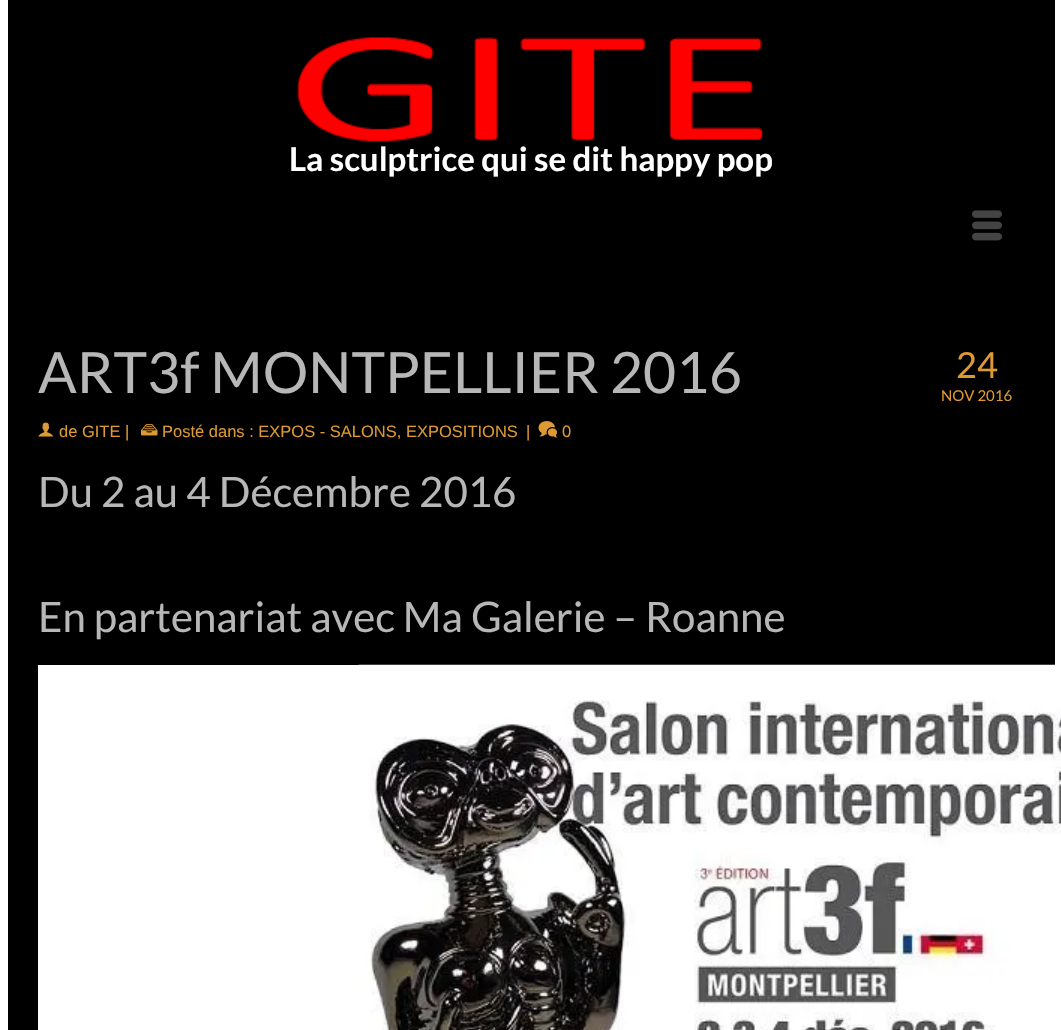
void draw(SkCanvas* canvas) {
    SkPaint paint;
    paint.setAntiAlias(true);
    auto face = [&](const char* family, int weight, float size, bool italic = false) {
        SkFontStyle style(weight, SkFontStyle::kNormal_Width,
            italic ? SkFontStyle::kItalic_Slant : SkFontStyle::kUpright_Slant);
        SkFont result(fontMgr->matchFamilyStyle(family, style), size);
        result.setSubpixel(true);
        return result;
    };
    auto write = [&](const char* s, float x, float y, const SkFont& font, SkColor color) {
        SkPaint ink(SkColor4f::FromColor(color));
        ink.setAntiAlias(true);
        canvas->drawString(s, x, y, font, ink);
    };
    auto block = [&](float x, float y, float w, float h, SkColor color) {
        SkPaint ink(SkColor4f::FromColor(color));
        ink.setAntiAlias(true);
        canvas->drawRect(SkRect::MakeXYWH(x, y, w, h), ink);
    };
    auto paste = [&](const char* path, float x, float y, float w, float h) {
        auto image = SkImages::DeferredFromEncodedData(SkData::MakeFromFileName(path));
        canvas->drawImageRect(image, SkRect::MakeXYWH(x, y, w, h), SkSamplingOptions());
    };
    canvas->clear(SK_ColorWHITE);
    block(8, 0, 1047, 1030, SK_ColorBLACK);
    paste("pic1.png", 296, 37, 467, 105);
    auto kFont1 = face("Lato", 700, 33);
    write("La sculptrice qui se dit happy pop", 289, 171, kFont1, SK_ColorWHITE);
    paste("pic2.png", 972, 210, 30, 31);
    auto kFont2 = face("Lato", 400, 57);
    write("ART3f MONTPELLIER 2016", 38, 393, kFont2, SkColorSetRGB(183, 183, 183));
    paste("pic3.png", 38, 422, 15, 15);
    auto kFont3 = face("Liberation Sans", 400, 16.5f);
    write("de GITE |", 59, 437, kFont3, SkColorSetRGB(221, 153, 51));
    paste("pic4.png", 141, 424, 17, 12);
    write("Posté dans : EXPOS - SALONS, EXPOSITIONS", 162, 437, kFont3, SkColorSetRGB(221, 153, 51));
    write("|", 526, 437, kFont3, SkColorSetRGB(221, 153, 51));
    paste("pic5.png", 538, 421, 20, 17);
    write("0", 562, 437, kFont3, SkColorSetRGB(221, 153, 51));
    auto kFont4 = face("Lato", 400, 36);
    write("24", 956, 378, kFont4, SkColorSetRGB(221, 153, 51));
    auto kFont5 = face("Lato", 400, 15);
    write("NOV 2016", 941, 401, kFont5, SkColorSetRGB(221, 153, 51));
    auto kFont6 = face("Lato", 400, 42);
    write("Du 2 au 4 Décembre 2016", 38, 507, kFont6, SkColorSetRGB(183, 183, 183));
    write("En partenariat avec Ma Galerie – Roanne", 38, 632, kFont6, SkColorSetRGB(183, 183, 183));
    block(38, 665, 321, 365, SK_ColorWHITE);
    paste("pic6.png", 358, 664, 703, 366);
}
